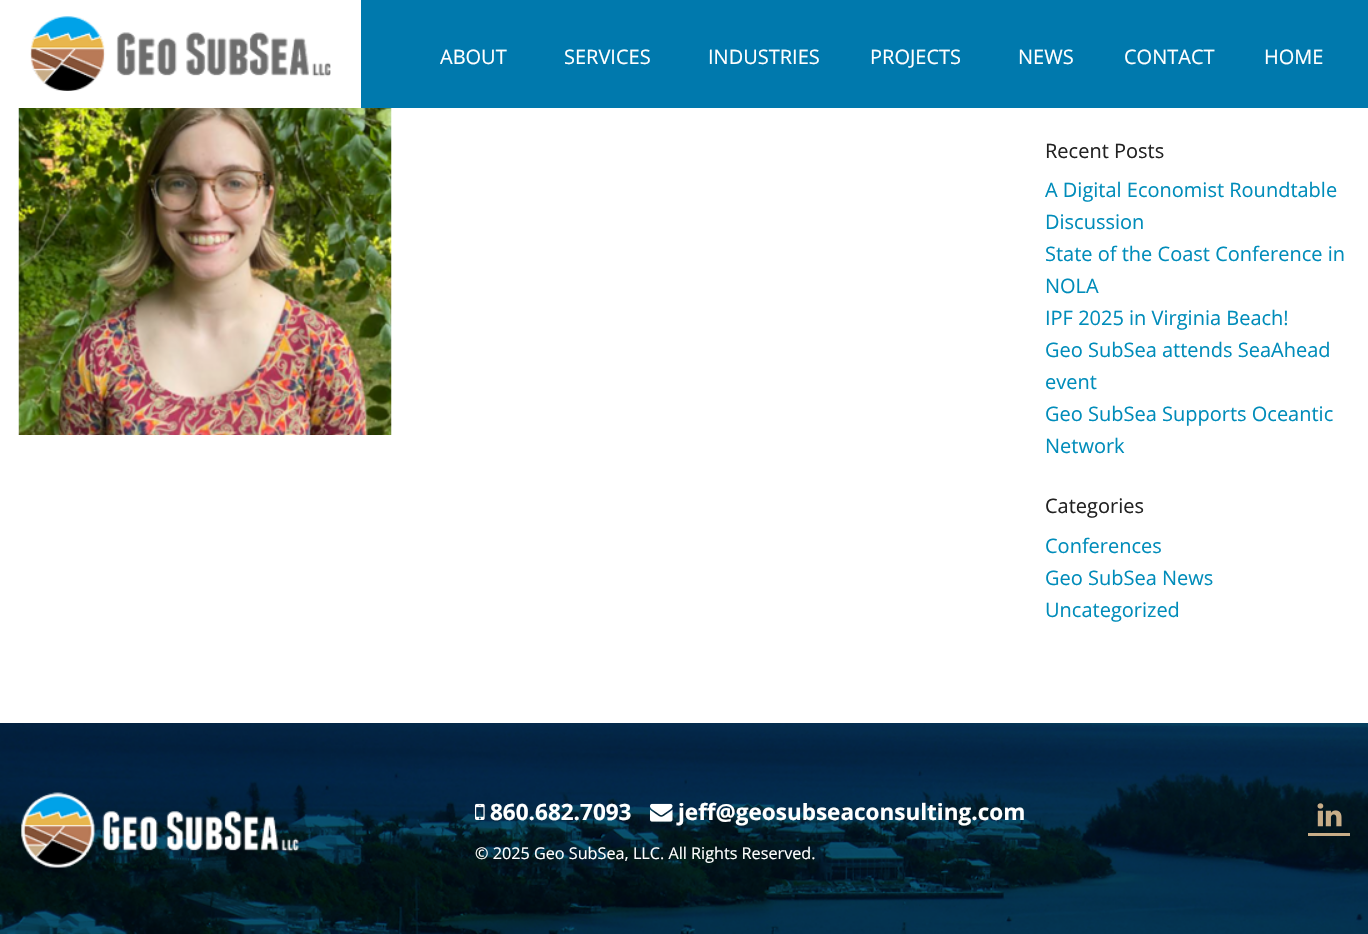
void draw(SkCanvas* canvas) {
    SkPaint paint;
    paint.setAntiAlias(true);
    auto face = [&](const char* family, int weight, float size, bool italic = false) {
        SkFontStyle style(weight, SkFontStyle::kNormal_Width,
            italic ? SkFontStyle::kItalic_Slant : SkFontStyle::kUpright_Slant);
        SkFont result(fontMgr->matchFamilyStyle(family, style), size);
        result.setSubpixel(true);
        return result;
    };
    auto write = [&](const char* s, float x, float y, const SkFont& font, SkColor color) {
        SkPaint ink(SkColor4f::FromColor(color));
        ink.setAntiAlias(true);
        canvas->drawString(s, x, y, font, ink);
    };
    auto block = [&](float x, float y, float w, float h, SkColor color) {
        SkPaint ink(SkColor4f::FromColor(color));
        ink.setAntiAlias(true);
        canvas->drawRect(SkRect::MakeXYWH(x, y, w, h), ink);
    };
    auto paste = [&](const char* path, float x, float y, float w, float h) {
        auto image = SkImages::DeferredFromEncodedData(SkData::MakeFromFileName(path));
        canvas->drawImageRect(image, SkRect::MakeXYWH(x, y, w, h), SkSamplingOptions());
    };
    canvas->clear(SK_ColorWHITE);
    block(361, 0, 1007, 108, SkColorSetRGB(0, 121, 173));
    paste("pic1.png", 30, 16, 301, 75);
    auto kFont1 = face("Open Sans", 400, 20);
    write("ABOUT", 440, 64, kFont1, SK_ColorWHITE);
    write("SERVICES", 564, 64, kFont1, SK_ColorWHITE);
    write("INDUSTRIES", 708, 64, kFont1, SK_ColorWHITE);
    write("PROJECTS", 870, 64, kFont1, SK_ColorWHITE);
    write("NEWS", 1018, 64, kFont1, SK_ColorWHITE);
    write("CONTACT", 1124, 64, kFont1, SK_ColorWHITE);
    write("HOME", 1264, 64, kFont1, SK_ColorWHITE);
    paste("pic2.png", 18, 108, 374, 327);
    write("Recent Posts", 1045, 158, kFont1, SkColorSetRGB(34, 34, 34));
    write("A Digital Economist Roundtable", 1045, 197, kFont1, SkColorSetRGB(0, 140, 186));
    write("Discussion", 1045, 229, kFont1, SkColorSetRGB(0, 140, 186));
    write("State of the Coast Conference in", 1045, 261, kFont1, SkColorSetRGB(0, 140, 186));
    write("NOLA", 1045, 293, kFont1, SkColorSetRGB(0, 140, 186));
    write("IPF 2025 in Virginia Beach!", 1045, 325, kFont1, SkColorSetRGB(0, 140, 186));
    write("Geo SubSea attends SeaAhead", 1045, 357, kFont1, SkColorSetRGB(0, 140, 186));
    write("event", 1045, 389, kFont1, SkColorSetRGB(0, 140, 186));
    write("Geo SubSea Supports Oceantic", 1045, 421, kFont1, SkColorSetRGB(0, 140, 186));
    write("Network", 1045, 453, kFont1, SkColorSetRGB(0, 140, 186));
    write("Categories", 1045, 513, kFont1, SkColorSetRGB(34, 34, 34));
    write("Conferences", 1045, 553, kFont1, SkColorSetRGB(0, 140, 186));
    write("Geo SubSea News", 1045, 585, kFont1, SkColorSetRGB(0, 140, 186));
    write("Uncategorized", 1045, 617, kFont1, SkColorSetRGB(0, 140, 186));
    paste("pic3.png", 0, 723, 1368, 211);
    paste("pic4.png", 21, 792, 278, 76);
    paste("pic5.png", 475, 803, 10, 17);
    auto kFont2 = face("Open Sans", 700, 22.5f);
    write("860.682.7093", 490, 820, kFont2, SK_ColorWHITE);
    paste("pic6.png", 650, 803, 23, 19);
    write("jeff@geosubseaconsulting.com", 678, 820, kFont2, SK_ColorWHITE);
    auto kFont3 = face("Open Sans", 400, 16.2f);
    write("© 2025 Geo SubSea, LLC. All Rights Reserved.", 475, 859, kFont3, SK_ColorWHITE);
    block(1308, 833, 42, 3, SkColorSetRGB(200, 173, 136));
    paste("pic7.png", 1317, 803, 25, 24);
}
